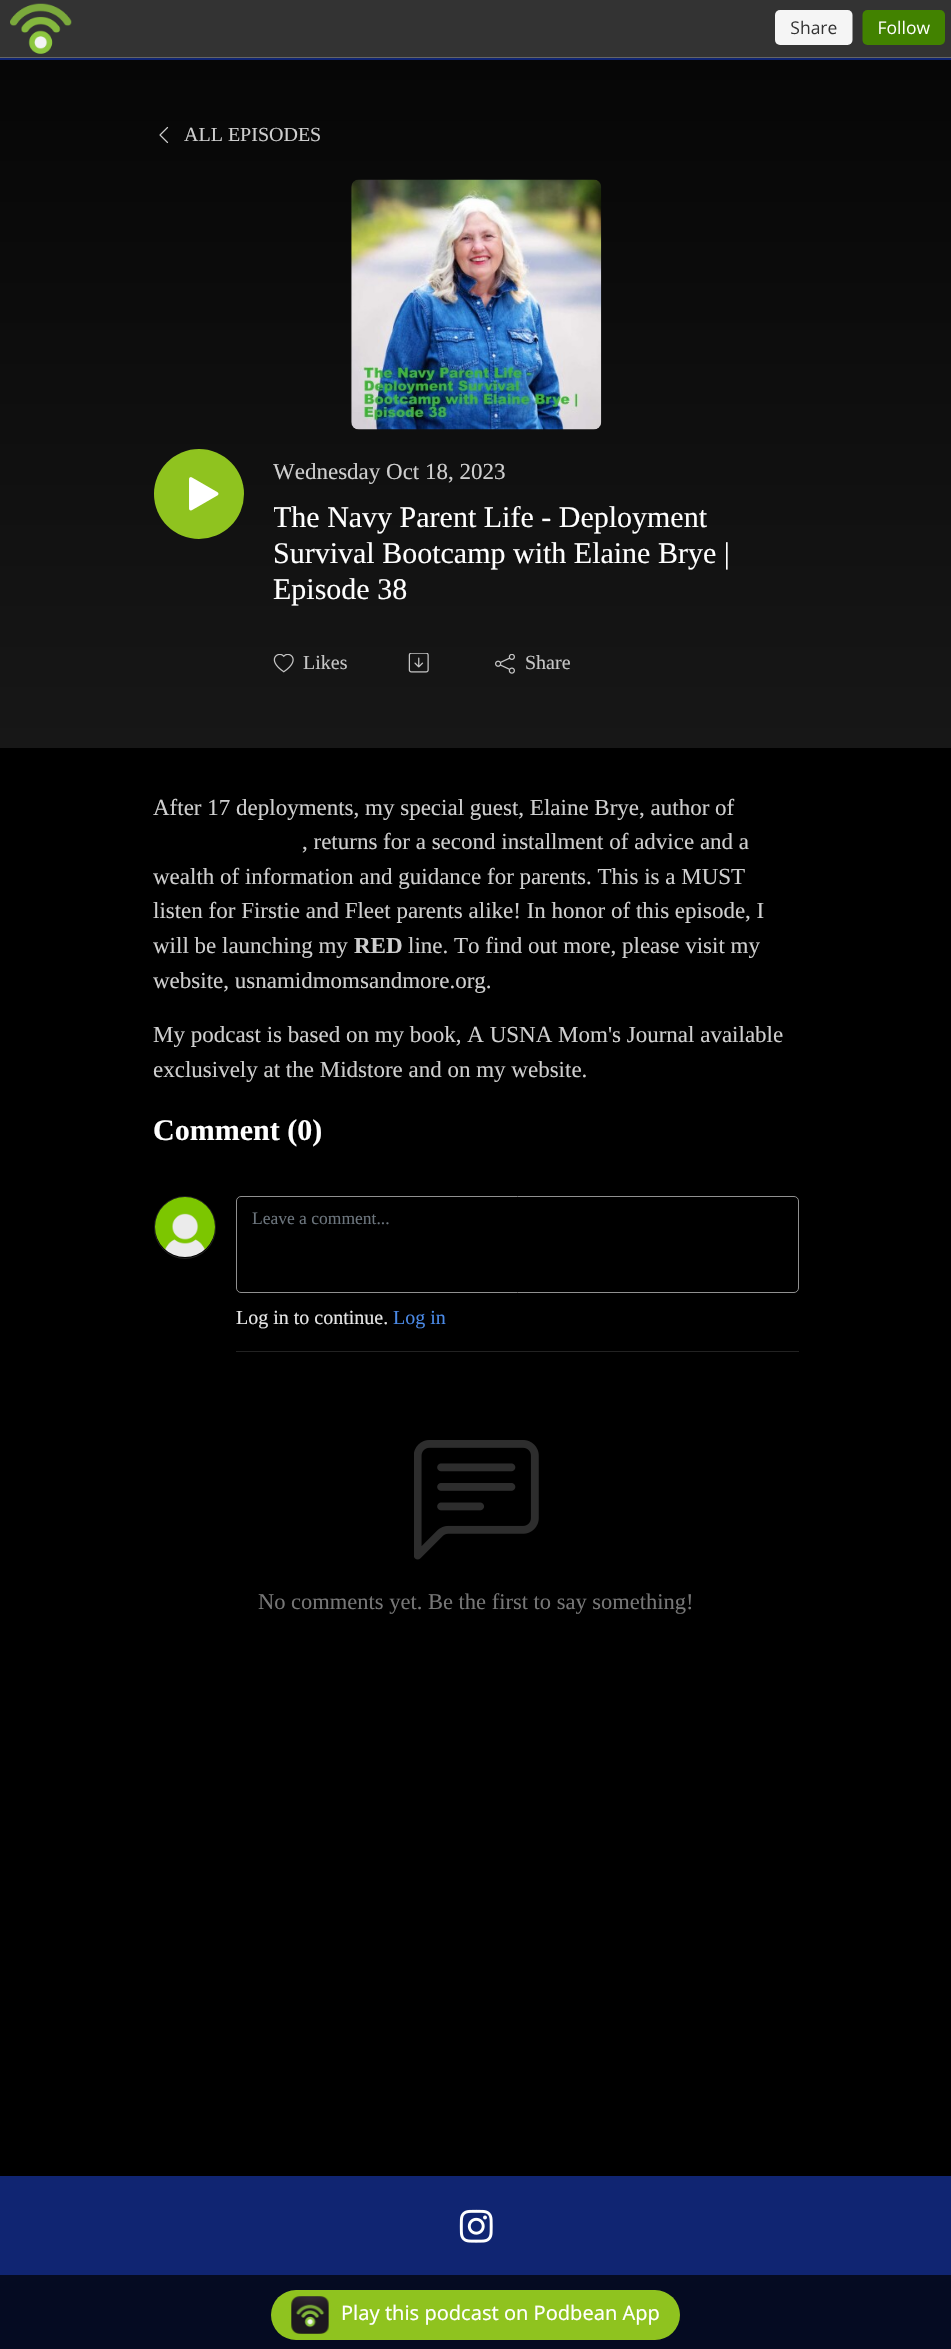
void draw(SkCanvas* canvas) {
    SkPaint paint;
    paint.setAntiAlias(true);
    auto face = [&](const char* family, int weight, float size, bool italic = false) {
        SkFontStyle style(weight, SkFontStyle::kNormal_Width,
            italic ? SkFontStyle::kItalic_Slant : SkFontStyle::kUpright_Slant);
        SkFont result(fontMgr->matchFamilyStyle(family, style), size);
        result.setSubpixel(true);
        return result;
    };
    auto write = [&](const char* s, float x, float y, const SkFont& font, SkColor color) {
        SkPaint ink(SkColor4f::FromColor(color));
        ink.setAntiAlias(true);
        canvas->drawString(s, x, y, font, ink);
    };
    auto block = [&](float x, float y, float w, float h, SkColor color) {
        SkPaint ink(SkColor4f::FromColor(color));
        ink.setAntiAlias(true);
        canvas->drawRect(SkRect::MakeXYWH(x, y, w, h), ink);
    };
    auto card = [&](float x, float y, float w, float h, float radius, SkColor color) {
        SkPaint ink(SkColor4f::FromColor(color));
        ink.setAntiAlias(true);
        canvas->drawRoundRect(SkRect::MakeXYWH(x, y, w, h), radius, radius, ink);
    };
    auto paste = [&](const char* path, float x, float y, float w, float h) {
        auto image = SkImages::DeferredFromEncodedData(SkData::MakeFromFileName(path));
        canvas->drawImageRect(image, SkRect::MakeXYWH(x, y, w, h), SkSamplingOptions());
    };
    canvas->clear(SK_ColorBLACK);
    block(0, 0, 951, 3, SkColorSetRGB(51, 51, 51));
    paste("pic1.png", 0, 3, 951, 55);
    block(0, 58, 951, 2, SkColorSetRGB(16, 37, 114));
    {
        const SkColor colors[] = {SkColorSetRGB(23, 23, 23), SkColorSetRGB(6, 6, 6)};
        const float stops[] = {0, 1};
        const SkPoint ends[] = {{476, 748}, {476, 60}};
        paint.setShader(SkGradientShader::MakeLinear(ends, colors, stops, 2, SkTileMode::kClamp));
        paint.setAlpha(255);
    }
    canvas->drawRect(SkRect::MakeXYWH(0, 60, 951, 688), paint);
    paste("pic2.png", 159, 126, 10, 18);
    auto kFont1 = face("Liberation Serif", 400, 20);
    write("ALL EPISODES", 184, 141, kFont1, SkColorSetRGB(206, 206, 206));
    paste("pic3.png", 351, 179, 251, 251);
    paint.setShader(nullptr);
    paint.setColor(SkColorSetRGB(143, 195, 31));
    canvas->drawCircle(199, 494, 45, paint);
    paste("pic4.png", 189, 477, 30, 34);
    auto kFont2 = face("Liberation Serif", 400, 23);
    write("Wednesday Oct 18, 2023", 273, 479, kFont2, SkColorSetRGB(206, 206, 206));
    canvas->save();
    canvas->clipRect(SkRect::MakeXYWH(274, 500, 525, 108));
    auto kFont3 = face("Liberation Serif", 400, 30);
    write("The Navy Parent Life - Deployment", 273, 527, kFont3, SK_ColorWHITE);
    canvas->restore();
    write("Survival Bootcamp with Elaine Brye |", 273, 563, kFont3, SK_ColorWHITE);
    write("Episode 38", 273, 599, kFont3, SK_ColorWHITE);
    paste("pic5.png", 273, 654, 21, 19);
    write("Likes", 303, 669, kFont1, SkColorSetRGB(197, 197, 197));
    paste("pic6.png", 408, 653, 21, 20);
    paste("pic7.png", 495, 654, 20, 20);
    write("Share", 525, 669, kFont1, SkColorSetRGB(197, 197, 197));
    write("After 17 deployments, my special guest, Elaine Brye, author of", 153, 815, kFont2, SkColorSetRGB(206, 206, 206));
    write(", returns for a second installment of advice and a", 302, 849, kFont2, SkColorSetRGB(206, 206, 206));
    write("wealth of information and guidance for parents. This is a MUST", 153, 884, kFont2, SkColorSetRGB(206, 206, 206));
    write("listen for Firstie and Fleet parents alike! In honor of this episode, I", 153, 918, kFont2, SkColorSetRGB(206, 206, 206));
    write("will be launching my", 153, 953, kFont2, SkColorSetRGB(206, 206, 206));
    auto kFont4 = face("Liberation Serif", 700, 23);
    write("RED", 354, 953, kFont4, SkColorSetRGB(206, 206, 206));
    write("line. To find out more, please visit my", 408, 953, kFont2, SkColorSetRGB(206, 206, 206));
    write("website, usnamidmomsandmore.org.", 153, 988, kFont2, SkColorSetRGB(206, 206, 206));
    write("My podcast is based on my book, A USNA Mom's Journal available", 153, 1042, kFont2, SkColorSetRGB(206, 206, 206));
    write("exclusively at the Midstore and on my website.", 153, 1077, kFont2, SkColorSetRGB(206, 206, 206));
    auto kFont5 = face("Liberation Serif", 700, 30);
    write("Comment (0)", 153, 1140, kFont5, SK_ColorWHITE);
    paint.setStyle(SkPaint::kStroke_Style);
    paint.setStrokeWidth(1);
    paint.setColor(SkColorSetRGB(32, 32, 32));
    canvas->drawRoundRect(SkRect::MakeXYWH(154.5f, 1196.5f, 61, 62), 30.5f, 30.5f, paint);
    paste("pic8.png", 155, 1197, 60, 60);
    block(236, 1351, 563, 1, SkColorSetRGB(34, 34, 34));
    paint.setColor(SkColorSetRGB(144, 144, 144));
    canvas->drawRoundRect(SkRect::MakeXYWH(236.5f, 1196.5f, 562, 96), 4.5f, 4.5f, paint);
    auto kFont6 = face("Liberation Serif", 400, 17.5f);
    write("Leave a comment...", 252, 1224, kFont6, SkColorSetRGB(108, 117, 125));
    write("Log in to continue.", 236, 1324, kFont1, SkColorSetRGB(230, 230, 230));
    write("Log in", 393, 1324, kFont1, SkColorSetRGB(74, 137, 230));
    paste("pic9.png", 414, 1440, 125, 120);
    auto kFont7 = face("Liberation Serif", 400, 22.5f);
    write("No comments yet. Be the first to say something!", 258, 1609, kFont7, SkColorSetRGB(118, 118, 118));
    block(0, 2176, 951, 173, SkColorSetRGB(16, 37, 114));
    paste("pic10.png", 459, 2209, 34, 34);
    block(0, 2275, 951, 74, SkColorSetARGB(179, 0, 0, 0));
    card(271, 2290, 409, 50, 25, SkColorSetRGB(143, 195, 31));
    paste("pic11.png", 291, 2296, 38, 38);
    auto kFont8 = face("Noto Sans", 400, 20);
    write("Play this podcast on Podbean App", 341, 2320, kFont8, SK_ColorWHITE);
}
